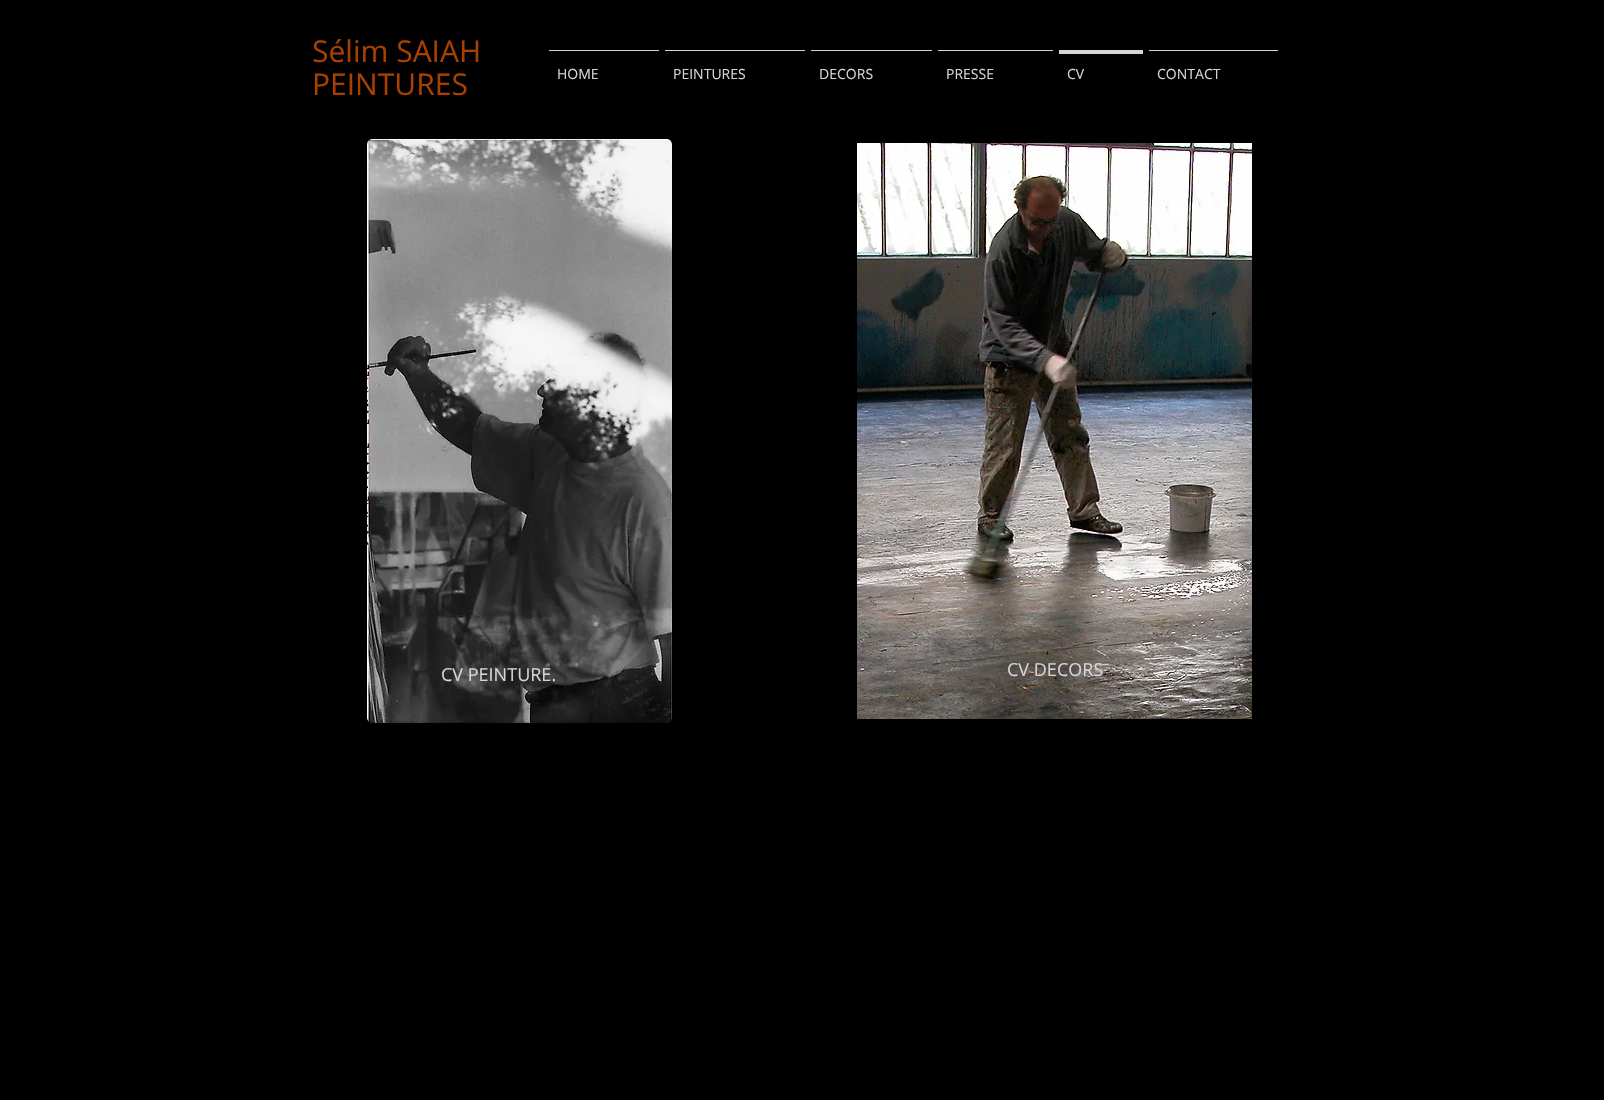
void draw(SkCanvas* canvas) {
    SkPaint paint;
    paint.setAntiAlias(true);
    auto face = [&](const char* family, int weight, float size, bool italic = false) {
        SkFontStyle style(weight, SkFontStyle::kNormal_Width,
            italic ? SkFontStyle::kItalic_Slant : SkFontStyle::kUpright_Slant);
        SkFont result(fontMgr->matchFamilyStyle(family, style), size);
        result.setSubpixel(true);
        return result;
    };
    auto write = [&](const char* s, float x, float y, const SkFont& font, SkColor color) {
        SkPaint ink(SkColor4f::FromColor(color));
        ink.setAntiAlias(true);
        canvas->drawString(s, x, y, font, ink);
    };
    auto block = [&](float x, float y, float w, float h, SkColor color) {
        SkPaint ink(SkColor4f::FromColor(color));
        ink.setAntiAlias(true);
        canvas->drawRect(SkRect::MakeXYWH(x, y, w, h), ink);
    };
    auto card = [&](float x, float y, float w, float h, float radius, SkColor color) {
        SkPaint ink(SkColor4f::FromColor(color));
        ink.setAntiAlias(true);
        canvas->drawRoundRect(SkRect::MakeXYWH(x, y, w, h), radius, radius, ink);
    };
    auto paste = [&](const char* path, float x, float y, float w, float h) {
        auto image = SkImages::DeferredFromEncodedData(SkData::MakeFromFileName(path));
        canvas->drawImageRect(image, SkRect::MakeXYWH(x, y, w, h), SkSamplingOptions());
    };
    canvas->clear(SK_ColorBLACK);
    auto kFont1 = face("Open Sans", 400, 30);
    write("Sélim SAIAH", 312, 62, kFont1, SkColorSetRGB(168, 64, 0));
    write("PEINTURES", 312, 95, kFont1, SkColorSetRGB(168, 64, 0));
    block(549, 50, 110, 1, SkColorSetRGB(213, 213, 213));
    auto kFont2 = face("Open Sans", 400, 14);
    write("HOME", 557, 79, kFont2, SkColorSetRGB(213, 213, 213));
    block(665, 50, 140, 1, SkColorSetRGB(213, 213, 213));
    write("PEINTURES", 673, 79, kFont2, SkColorSetRGB(213, 213, 213));
    block(811, 50, 121, 1, SkColorSetRGB(213, 213, 213));
    write("DECORS", 819, 79, kFont2, SkColorSetRGB(213, 213, 213));
    block(938, 50, 115, 1, SkColorSetRGB(213, 213, 213));
    write("PRESSE", 946, 79, kFont2, SkColorSetRGB(213, 213, 213));
    block(1059, 50, 84, 4, SkColorSetRGB(213, 213, 213));
    write("CV", 1067, 79, kFont2, SkColorSetRGB(213, 213, 213));
    block(1149, 50, 129, 1, SkColorSetRGB(213, 213, 213));
    write("CONTACT", 1157, 79, kFont2, SkColorSetRGB(213, 213, 213));
    card(367, 139, 305, 584, 5, SkColorSetRGB(42, 42, 42));
    paste("pic1.png", 367, 139, 305, 584);
    paste("pic2.png", 857, 143, 395, 576);
    auto kFont3 = face("Open Sans", 400, 18);
    write("CV PEINTURE.", 441, 681, kFont3, SkColorSetRGB(213, 213, 213));
    write("CV DECORS", 1007, 676, kFont3, SkColorSetRGB(213, 213, 213));
    canvas->save();
    canvas->clipRect(SkRect::MakeXYWH(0, 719, 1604, 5));
    paint.setColor(SkColorSetARGB(179, 0, 0, 0));
    paint.setMaskFilter(SkMaskFilter::MakeBlur(kNormal_SkBlurStyle, 2.5f));
    canvas->drawRect(SkRect::MakeXYWH(0, 724, 1604, 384), paint);
    paint.setMaskFilter(nullptr);
    canvas->restore();
}
